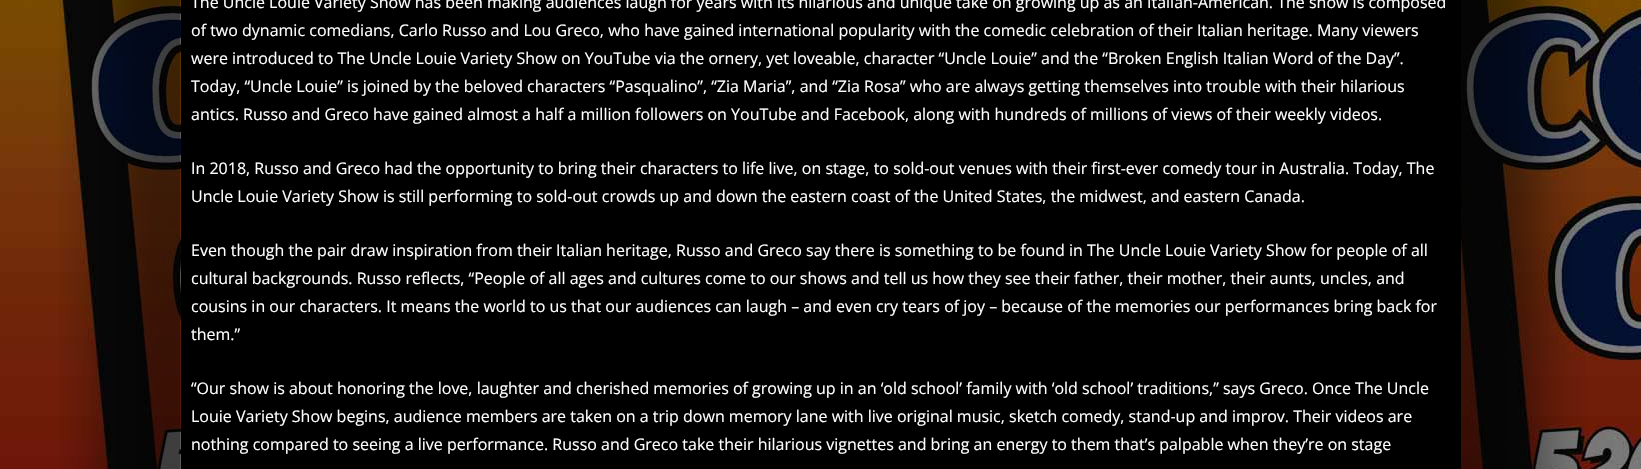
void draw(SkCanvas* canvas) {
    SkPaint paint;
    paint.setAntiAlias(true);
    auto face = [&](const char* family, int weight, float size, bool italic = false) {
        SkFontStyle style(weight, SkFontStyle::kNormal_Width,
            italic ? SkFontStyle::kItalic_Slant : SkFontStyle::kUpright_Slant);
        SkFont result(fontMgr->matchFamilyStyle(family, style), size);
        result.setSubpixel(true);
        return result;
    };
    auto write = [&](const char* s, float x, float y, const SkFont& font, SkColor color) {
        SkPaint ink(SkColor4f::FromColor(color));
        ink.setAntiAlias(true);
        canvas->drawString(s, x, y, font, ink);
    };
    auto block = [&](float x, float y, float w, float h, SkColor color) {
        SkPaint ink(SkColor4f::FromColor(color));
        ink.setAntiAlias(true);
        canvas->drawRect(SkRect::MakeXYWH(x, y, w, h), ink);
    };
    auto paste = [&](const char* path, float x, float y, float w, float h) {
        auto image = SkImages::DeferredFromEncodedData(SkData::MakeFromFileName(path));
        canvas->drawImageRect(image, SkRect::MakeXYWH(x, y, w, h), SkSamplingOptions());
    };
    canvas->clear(SK_ColorWHITE);
    paste("pic1.png", 0, 0, 1641, 469);
    paste("pic2.png", 59, 0, 122, 469);
    block(181, 0, 1280, 469, SK_ColorBLACK);
    auto kFont1 = face("Open Sans", 400, 16);
    write("The Uncle Louie Variety Show has been making audiences laugh for years with its hilarious and unique take on growing up as an Italian-American. The show is composed", 191, 8, kFont1, SK_ColorWHITE);
    write("of two dynamic comedians, Carlo Russo and Lou Greco, who have gained international popularity with the comedic celebration of their Italian heritage. Many viewers", 191, 36, kFont1, SK_ColorWHITE);
    write("were introduced to The Uncle Louie Variety Show on YouTube via the ornery, yet loveable, character “Uncle Louie” and the “Broken English Italian Word of the Day”.", 191, 64, kFont1, SK_ColorWHITE);
    write("Today, “Uncle Louie” is joined by the beloved characters “Pasqualino”, “Zia Maria”, and “Zia Rosa” who are always getting themselves into trouble with their hilarious", 191, 92, kFont1, SK_ColorWHITE);
    write("antics. Russo and Greco have gained almost a half a million followers on YouTube and Facebook, along with hundreds of millions of views of their weekly videos.", 191, 120, kFont1, SK_ColorWHITE);
    write("In 2018, Russo and Greco had the opportunity to bring their characters to life live, on stage, to sold-out venues with their first-ever comedy tour in Australia. Today, The", 191, 174, kFont1, SK_ColorWHITE);
    write("Uncle Louie Variety Show is still performing to sold-out crowds up and down the eastern coast of the United States, the midwest, and eastern Canada.", 191, 202, kFont1, SK_ColorWHITE);
    write("Even though the pair draw inspiration from their Italian heritage, Russo and Greco say there is something to be found in The Uncle Louie Variety Show for people of all", 191, 256, kFont1, SK_ColorWHITE);
    write("cultural backgrounds. Russo reflects, “People of all ages and cultures come to our shows and tell us how they see their father, their mother, their aunts, uncles, and", 191, 284, kFont1, SK_ColorWHITE);
    write("cousins in our characters. It means the world to us that our audiences can laugh – and even cry tears of joy – because of the memories our performances bring back for", 191, 312, kFont1, SK_ColorWHITE);
    write("them.”", 191, 340, kFont1, SK_ColorWHITE);
    write("“Our show is about honoring the love, laughter and cherished memories of growing up in an ‘old school’ family with ‘old school’ traditions,” says Greco. Once The Uncle", 191, 394, kFont1, SK_ColorWHITE);
    write("Louie Variety Show begins, audience members are taken on a trip down memory lane with live original music, sketch comedy, stand-up and improv. Their videos are", 191, 422, kFont1, SK_ColorWHITE);
    write("nothing compared to seeing a live performance. Russo and Greco take their hilarious vignettes and bring an energy to them that’s palpable when they’re on stage", 191, 450, kFont1, SK_ColorWHITE);
    paste("pic3.png", 1461, 0, 125, 469);
}
